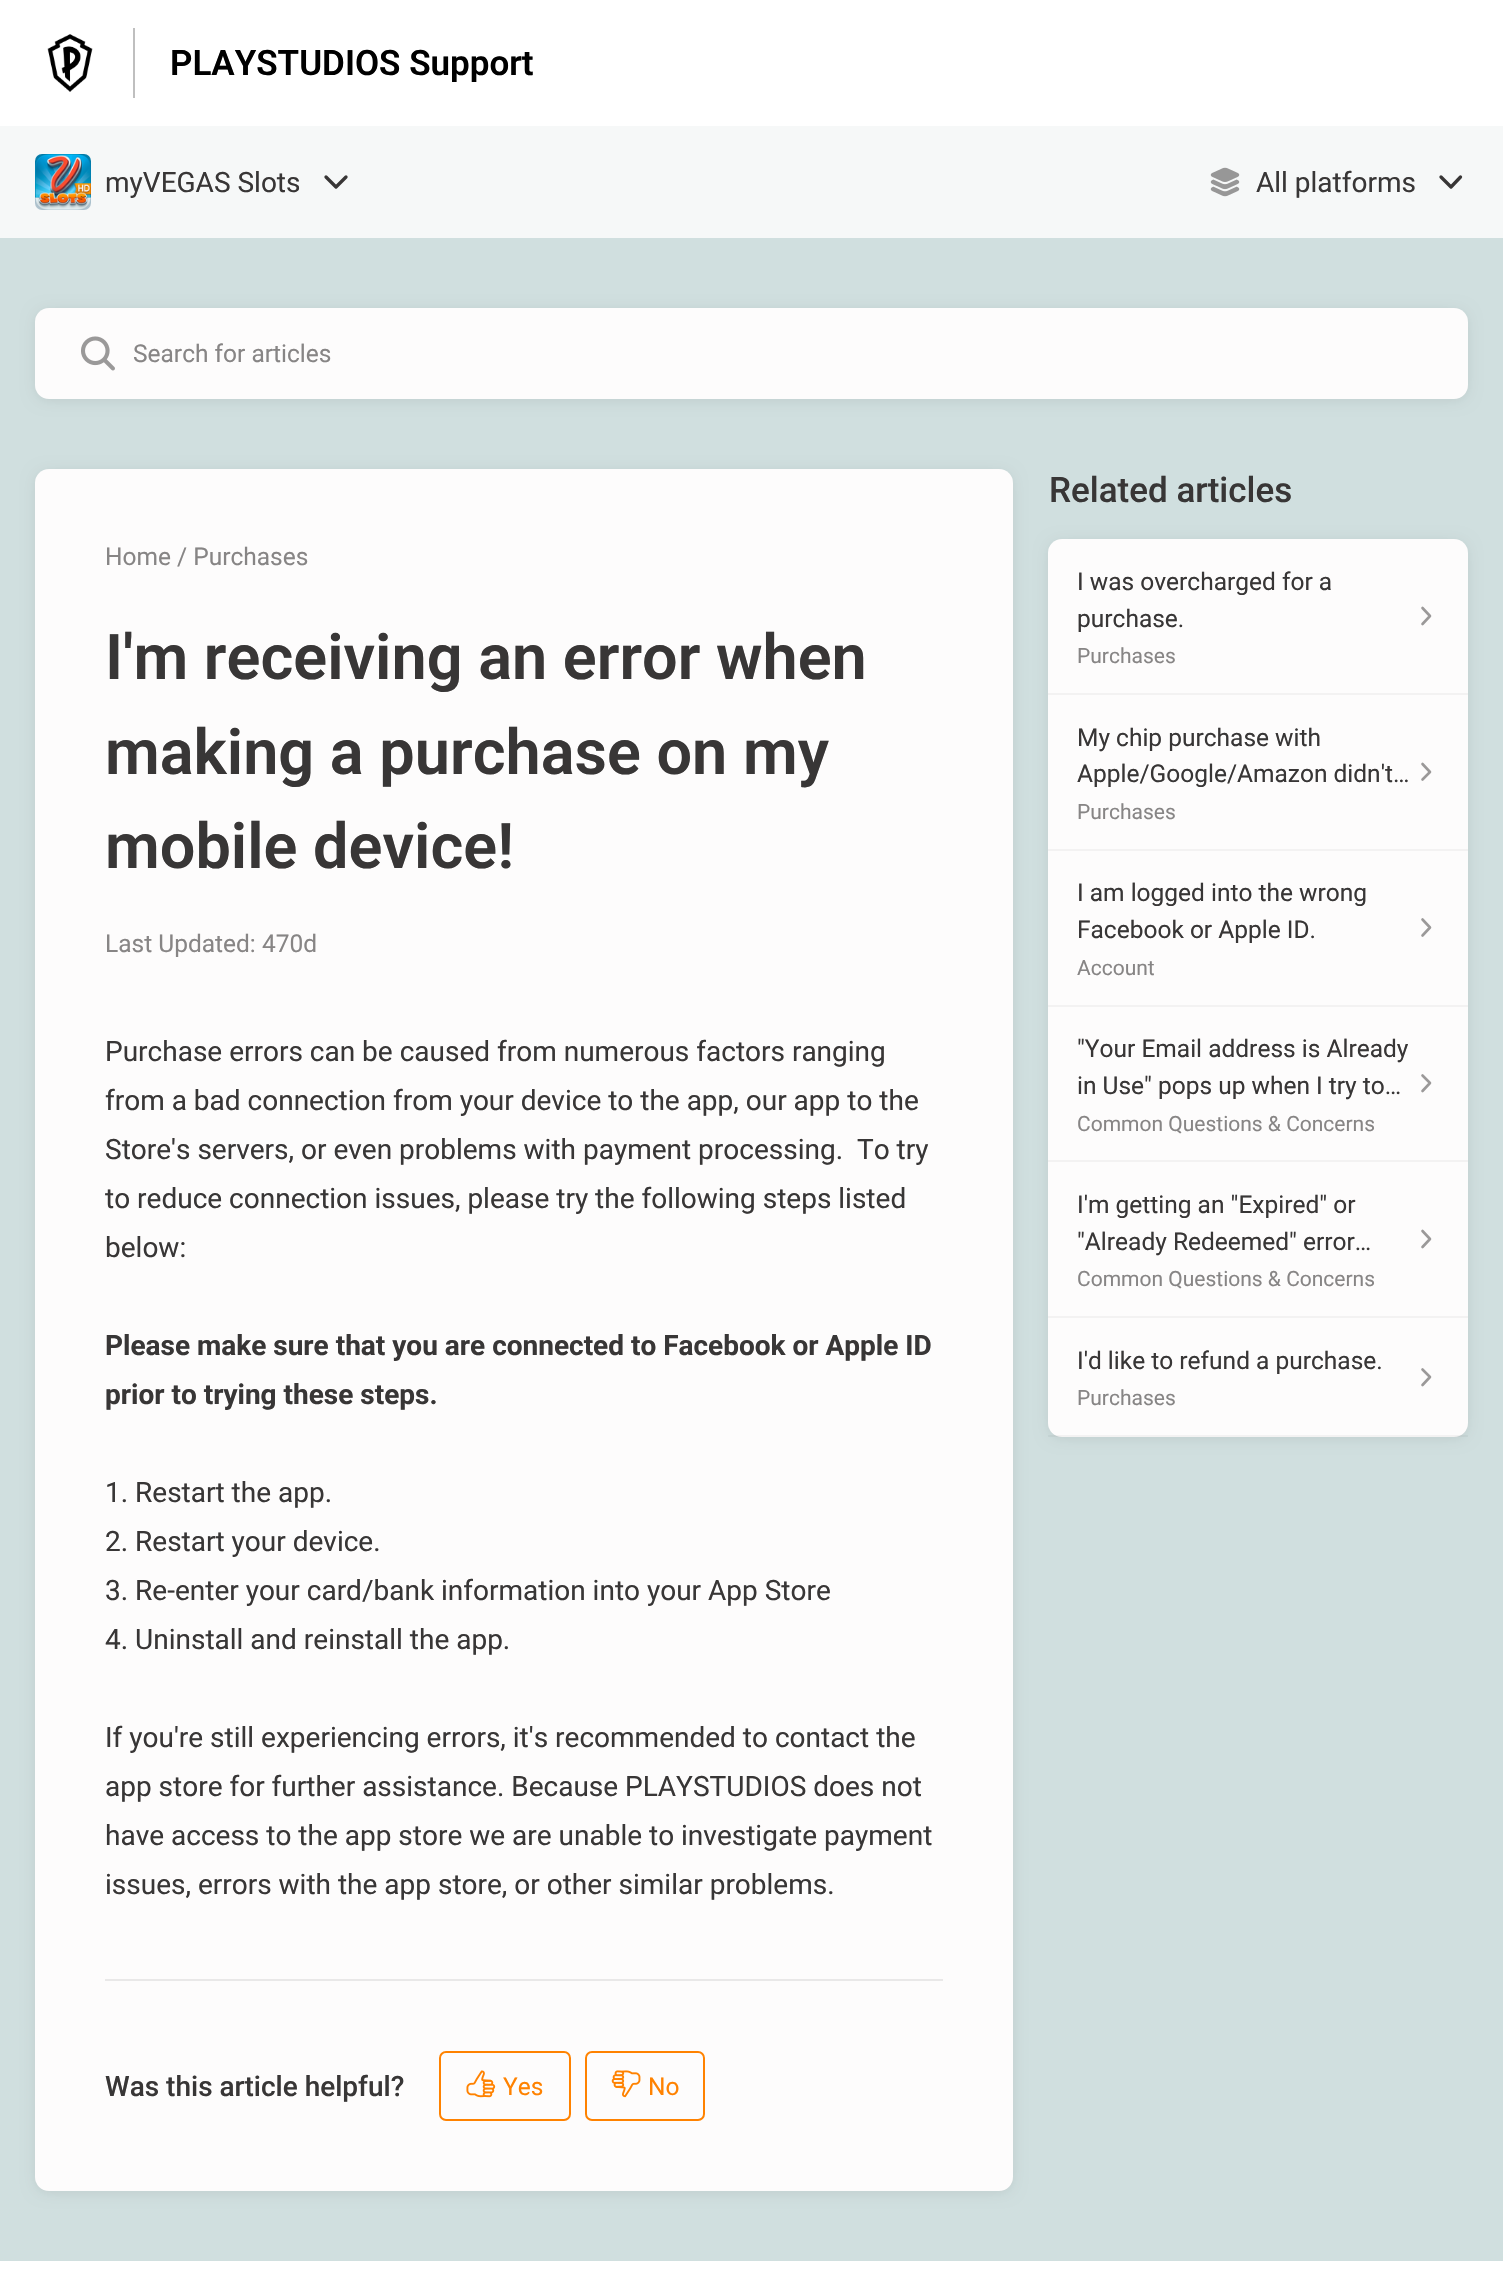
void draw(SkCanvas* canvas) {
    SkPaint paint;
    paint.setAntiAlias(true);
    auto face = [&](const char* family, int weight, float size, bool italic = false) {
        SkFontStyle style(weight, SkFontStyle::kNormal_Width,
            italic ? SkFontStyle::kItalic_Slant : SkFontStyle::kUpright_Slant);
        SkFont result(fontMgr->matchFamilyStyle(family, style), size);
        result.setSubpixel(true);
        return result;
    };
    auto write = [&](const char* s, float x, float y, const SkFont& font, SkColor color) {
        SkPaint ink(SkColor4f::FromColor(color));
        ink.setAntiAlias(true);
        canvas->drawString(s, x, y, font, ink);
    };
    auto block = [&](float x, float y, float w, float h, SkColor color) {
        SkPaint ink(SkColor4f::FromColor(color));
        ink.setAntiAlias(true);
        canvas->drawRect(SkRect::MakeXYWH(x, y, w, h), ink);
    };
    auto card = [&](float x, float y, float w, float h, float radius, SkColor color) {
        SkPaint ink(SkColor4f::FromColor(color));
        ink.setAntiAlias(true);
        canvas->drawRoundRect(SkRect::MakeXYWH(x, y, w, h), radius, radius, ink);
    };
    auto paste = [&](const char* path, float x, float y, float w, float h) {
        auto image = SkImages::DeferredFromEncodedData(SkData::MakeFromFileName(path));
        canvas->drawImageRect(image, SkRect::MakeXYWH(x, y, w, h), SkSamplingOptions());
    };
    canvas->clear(SkColorSetRGB(246, 248, 248));
    block(0, 0, 1503, 126, SK_ColorWHITE);
    block(133, 28, 2, 70, SkColorSetRGB(191, 191, 191));
    paste("pic1.png", 47, 34, 46, 58);
    auto kFont1 = face("Roboto", 600, 35);
    write("PLAYSTUDIOS Support", 170, 75, kFont1, SK_ColorBLACK);
    paste("pic2.png", 35, 154, 56, 56);
    auto kFont2 = face("Roboto", 400, 28);
    write("myVEGAS Slots", 105, 192, kFont2, SkColorSetRGB(56, 54, 54));
    paint.setStyle(SkPaint::kStroke_Style);
    paint.setStrokeWidth(3.3f);
    paint.setStrokeCap(SkPaint::kRound_Cap);
    paint.setStrokeJoin(SkPaint::kRound_Join);
    paint.setColor(SkColorSetRGB(56, 54, 54));
    canvas->drawPath(SkPathBuilder().moveTo(326, 177).lineTo(336, 187).lineTo(346, 177).detach(), paint);
    paste("pic3.png", 1210, 167, 30, 30);
    write("All platforms", 1256, 192, kFont2, SkColorSetRGB(56, 54, 54));
    canvas->drawPath(SkPathBuilder().moveTo(1441, 177).lineTo(1451, 187).lineTo(1460.5f, 177).detach(), paint);
    block(0, 238, 1503, 2023, SkColorSetRGB(208, 223, 223));
    paint.setStyle(SkPaint::kFill_Style);
    paint.setColor(SkColorSetARGB(20, 0, 0, 0));
    paint.setMaskFilter(SkMaskFilter::MakeBlur(kNormal_SkBlurStyle, 7));
    canvas->drawRoundRect(SkRect::MakeXYWH(35, 310, 1433, 91), 14, 14, paint);
    paint.setMaskFilter(nullptr);
    card(35, 308, 1433, 91, 14, SkColorSetRGB(253, 252, 252));
    paste("pic4.png", 81, 336, 34, 35);
    auto kFont3 = face("Roboto", 400, 24.5f);
    write("Search for articles", 133, 362, kFont3, SkColorSetRGB(135, 133, 133));
    paint.setMaskFilter(SkMaskFilter::MakeBlur(kNormal_SkBlurStyle, 7));
    canvas->drawRoundRect(SkRect::MakeXYWH(35, 471, 978, 1722), 14, 14, paint);
    paint.setMaskFilter(nullptr);
    card(35, 469, 978, 1722, 14, SkColorSetRGB(253, 252, 252));
    write("Home / Purchases", 105, 565, kFont3, SkColorSetRGB(135, 133, 133));
    auto kFont4 = face("Roboto", 600, 63);
    write("I'm receiving an error when", 105, 679, kFont4, SkColorSetRGB(56, 54, 54));
    write("making a purchase on my", 105, 774, kFont4, SkColorSetRGB(56, 54, 54));
    write("mobile device!", 105, 868, kFont4, SkColorSetRGB(56, 54, 54));
    write("Last Updated: 470d", 105, 952, kFont3, SkColorSetRGB(135, 133, 133));
    block(105, 1979, 838, 2, SkColorSetRGB(233, 232, 232));
    write("Purchase errors can be caused from numerous factors ranging", 105, 1061, kFont2, SkColorSetRGB(56, 54, 54));
    write("from a bad connection from your device to the app, our app to the", 105, 1110, kFont2, SkColorSetRGB(56, 54, 54));
    write("Store's servers, or even problems with payment processing.  To try", 105, 1159, kFont2, SkColorSetRGB(56, 54, 54));
    write("to reduce connection issues, please try the following steps listed", 105, 1208, kFont2, SkColorSetRGB(56, 54, 54));
    write("below:", 105, 1257, kFont2, SkColorSetRGB(56, 54, 54));
    auto kFont5 = face("Roboto", 700, 28);
    write("Please make sure that you are connected to Facebook or Apple ID", 105, 1355, kFont5, SkColorSetRGB(56, 54, 54));
    write("prior to trying these steps.", 105, 1404, kFont5, SkColorSetRGB(56, 54, 54));
    write("1. Restart the app.", 105, 1502, kFont2, SkColorSetRGB(56, 54, 54));
    write("2. Restart your device.", 105, 1551, kFont2, SkColorSetRGB(56, 54, 54));
    write("3. Re-enter your card/bank information into your App Store", 105, 1600, kFont2, SkColorSetRGB(56, 54, 54));
    write("4. Uninstall and reinstall the app.", 105, 1649, kFont2, SkColorSetRGB(56, 54, 54));
    write("If you're still experiencing errors, it's recommended to contact the", 105, 1747, kFont2, SkColorSetRGB(56, 54, 54));
    write("app store for further assistance. Because PLAYSTUDIOS does not", 105, 1796, kFont2, SkColorSetRGB(56, 54, 54));
    write("have access to the app store we are unable to investigate payment", 105, 1845, kFont2, SkColorSetRGB(56, 54, 54));
    write("issues, errors with the app store, or other similar problems.", 105, 1894, kFont2, SkColorSetRGB(56, 54, 54));
    auto kFont6 = face("Roboto", 500, 28);
    write("Was this article helpful?", 105, 2096, kFont6, SkColorSetRGB(56, 54, 54));
    paint.setStyle(SkPaint::kStroke_Style);
    paint.setStrokeWidth(2);
    paint.setStrokeCap(SkPaint::kButt_Cap);
    paint.setStrokeJoin(SkPaint::kMiter_Join);
    paint.setColor(SkColorSetRGB(255, 130, 0));
    canvas->drawRoundRect(SkRect::MakeXYWH(440, 2052, 130, 68), 6, 6, paint);
    paste("pic5.png", 466, 2070, 30, 28);
    write("Yes", 503, 2095, kFont3, SkColorSetRGB(255, 130, 0));
    canvas->drawRoundRect(SkRect::MakeXYWH(586, 2052, 118, 68), 6, 6, paint);
    paste("pic6.png", 611, 2070, 30, 28);
    write("No", 648, 2095, kFont3, SkColorSetRGB(255, 130, 0));
    auto kFont7 = face("Roboto", 500, 35);
    write("Related articles", 1049, 502, kFont7, SkColorSetRGB(56, 54, 54));
    paint.setStyle(SkPaint::kFill_Style);
    paint.setColor(SkColorSetARGB(20, 0, 0, 0));
    paint.setMaskFilter(SkMaskFilter::MakeBlur(kNormal_SkBlurStyle, 7));
    canvas->drawRoundRect(SkRect::MakeXYWH(1048, 541, 420, 898), 14, 14, paint);
    paint.setMaskFilter(nullptr);
    card(1048, 539, 420, 898, 14, SkColorSetRGB(253, 252, 252));
    block(1048, 693, 420, 2, SkColorSetRGB(243, 242, 242));
    write("I was overcharged for a", 1077, 590, kFont3, SkColorSetRGB(56, 54, 54));
    write("purchase.", 1077, 627, kFont3, SkColorSetRGB(56, 54, 54));
    auto kFont8 = face("Roboto", 400, 21);
    write("Purchases", 1077, 663, kFont8, SkColorSetRGB(135, 133, 133));
    paint.setStyle(SkPaint::kStroke_Style);
    paint.setStrokeWidth(2.6f);
    paint.setStrokeCap(SkPaint::kRound_Cap);
    paint.setStrokeJoin(SkPaint::kRound_Join);
    paint.setColor(SkColorSetRGB(155, 153, 153));
    canvas->drawPath(SkPathBuilder().moveTo(1422.5f, 608).lineTo(1430, 616).lineTo(1422.5f, 624).detach(), paint);
    block(1048, 849, 420, 2, SkColorSetRGB(243, 242, 242));
    write("My chip purchase with", 1077, 746, kFont3, SkColorSetRGB(56, 54, 54));
    write("Apple/Google/Amazon didn't…", 1077, 782, kFont3, SkColorSetRGB(56, 54, 54));
    write("Purchases", 1077, 819, kFont8, SkColorSetRGB(135, 133, 133));
    canvas->drawPath(SkPathBuilder().moveTo(1422.5f, 764).lineTo(1430, 772).lineTo(1422.5f, 779.5f).detach(), paint);
    block(1048, 1005, 420, 2, SkColorSetRGB(243, 242, 242));
    write("I am logged into the wrong", 1077, 901, kFont3, SkColorSetRGB(56, 54, 54));
    write("Facebook or Apple ID.", 1077, 938, kFont3, SkColorSetRGB(56, 54, 54));
    write("Account", 1077, 975, kFont8, SkColorSetRGB(135, 133, 133));
    canvas->drawPath(SkPathBuilder().moveTo(1422.5f, 919.5f).lineTo(1430, 927.5f).lineTo(1422.5f, 935.5f).detach(), paint);
    block(1048, 1160, 420, 2, SkColorSetRGB(243, 242, 242));
    write("\"Your Email address is Already", 1077, 1057, kFont3, SkColorSetRGB(56, 54, 54));
    write("in Use\" pops up when I try to…", 1077, 1094, kFont3, SkColorSetRGB(56, 54, 54));
    write("Common Questions & Concerns", 1077, 1131, kFont8, SkColorSetRGB(135, 133, 133));
    canvas->drawPath(SkPathBuilder().moveTo(1422.5f, 1075.5f).lineTo(1430, 1083).lineTo(1422.5f, 1091).detach(), paint);
    block(1048, 1316, 420, 2, SkColorSetRGB(243, 242, 242));
    write("I'm getting an \"Expired\" or", 1077, 1213, kFont3, SkColorSetRGB(56, 54, 54));
    write("\"Already Redeemed\" error…", 1077, 1250, kFont3, SkColorSetRGB(56, 54, 54));
    write("Common Questions & Concerns", 1077, 1286, kFont8, SkColorSetRGB(135, 133, 133));
    canvas->drawPath(SkPathBuilder().moveTo(1422.5f, 1231).lineTo(1430, 1239).lineTo(1422.5f, 1247).detach(), paint);
    block(1048, 1435, 420, 2, SkColorSetARGB(13, 56, 54, 54));
    write("I'd like to refund a purchase.", 1077, 1369, kFont3, SkColorSetRGB(56, 54, 54));
    write("Purchases", 1077, 1405, kFont8, SkColorSetRGB(135, 133, 133));
    canvas->drawPath(SkPathBuilder().moveTo(1422.5f, 1369.5f).lineTo(1430, 1377).lineTo(1422.5f, 1385).detach(), paint);
    block(0, 2261, 1503, 21, SK_ColorWHITE);
}
